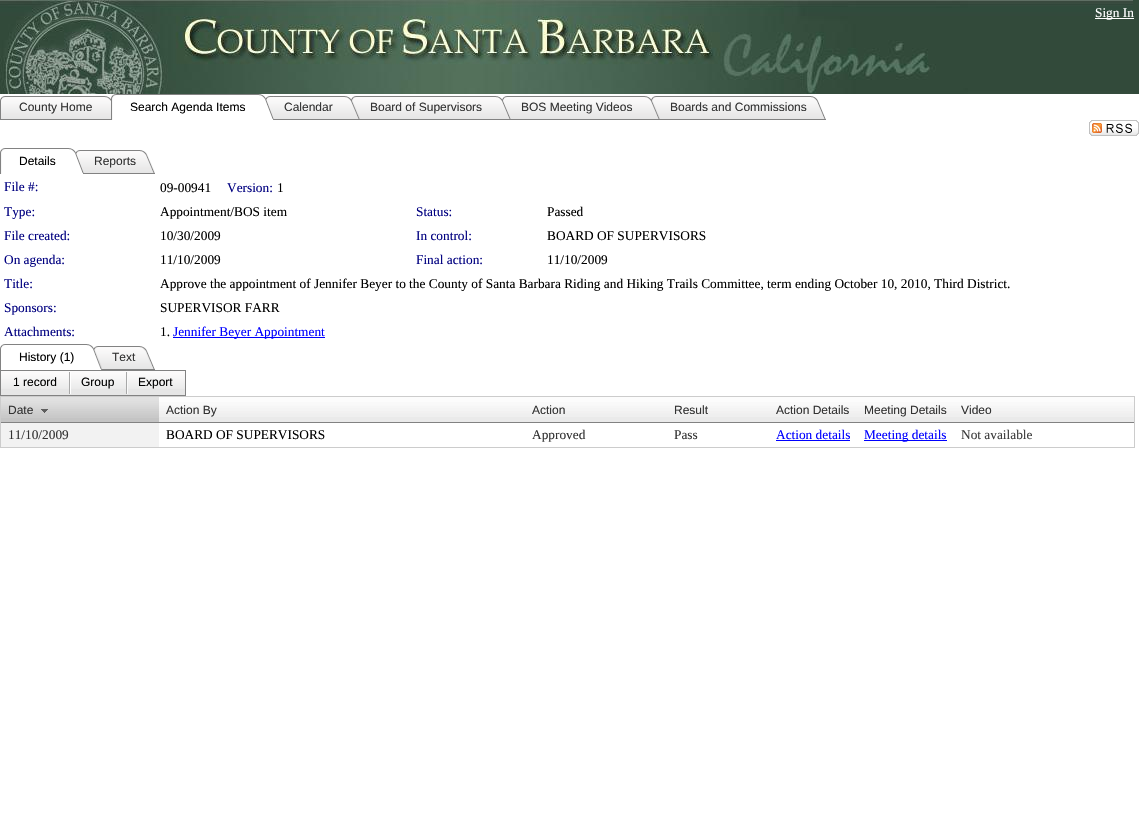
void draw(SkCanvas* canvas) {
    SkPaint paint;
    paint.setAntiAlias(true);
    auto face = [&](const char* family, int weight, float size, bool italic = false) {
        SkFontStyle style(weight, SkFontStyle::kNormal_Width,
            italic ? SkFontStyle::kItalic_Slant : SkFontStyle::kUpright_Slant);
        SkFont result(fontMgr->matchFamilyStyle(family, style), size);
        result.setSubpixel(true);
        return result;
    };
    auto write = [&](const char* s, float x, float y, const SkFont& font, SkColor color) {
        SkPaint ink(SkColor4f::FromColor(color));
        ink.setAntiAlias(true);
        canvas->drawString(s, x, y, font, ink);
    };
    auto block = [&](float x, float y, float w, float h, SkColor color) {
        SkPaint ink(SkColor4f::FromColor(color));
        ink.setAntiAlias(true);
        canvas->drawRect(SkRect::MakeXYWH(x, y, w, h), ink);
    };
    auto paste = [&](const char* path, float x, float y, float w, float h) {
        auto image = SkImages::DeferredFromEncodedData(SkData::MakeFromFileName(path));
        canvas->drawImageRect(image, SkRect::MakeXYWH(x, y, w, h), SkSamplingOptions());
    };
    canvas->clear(SK_ColorWHITE);
    block(1133, 0, 6, 94, SkColorSetRGB(50, 74, 58));
    paste("pic1.png", 0, 0, 1133, 94);
    block(1095, 18, 39, 1, SK_ColorWHITE);
    auto kFont1 = face("Liberation Serif", 400, 13.33f);
    write("Sign In", 1095, 17, kFont1, SK_ColorWHITE);
    paste("pic2.png", 0, 96, 9, 24);
    paste("pic3.png", 9, 96, 102, 24);
    auto kFont2 = face("Liberation Sans", 400, 12);
    write("County Home", 19, 111, kFont2, SkColorSetRGB(51, 51, 51));
    paste("pic4.png", 111, 94, 10, 26);
    paste("pic5.png", 120, 94, 145, 5);
    write("Search Agenda Items", 130, 111, kFont2, SK_ColorBLACK);
    paste("pic6.png", 265, 96, 9, 24);
    paste("pic7.png", 274, 96, 77, 24);
    write("Calendar", 284, 111, kFont2, SkColorSetRGB(51, 51, 51));
    paste("pic8.png", 351, 96, 9, 24);
    paste("pic9.png", 360, 96, 142, 24);
    write("Board of Supervisors", 370, 111, kFont2, SkColorSetRGB(51, 51, 51));
    paste("pic10.png", 502, 96, 9, 24);
    paste("pic11.png", 511, 96, 140, 24);
    write("BOS Meeting Videos", 521, 111, kFont2, SkColorSetRGB(51, 51, 51));
    paste("pic8.png", 651, 96, 9, 24);
    paste("pic12.png", 660, 96, 166, 24);
    write("Boards and Commissions", 670, 111, kFont2, SkColorSetRGB(51, 51, 51));
    paste("pic13.png", 1089, 120, 50, 16);
    paste("pic4.png", 0, 148, 10, 26);
    paste("pic14.png", 9, 148, 66, 5);
    write("Details", 19, 165, kFont2, SK_ColorBLACK);
    paste("pic15.png", 75, 150, 9, 24);
    paste("pic16.png", 84, 150, 71, 24);
    write("Reports", 94, 165, kFont2, SkColorSetRGB(51, 51, 51));
    write("File #:", 4, 191, kFont1, SkColorSetRGB(0, 0, 128));
    write("09-00941", 160, 192, kFont1, SK_ColorBLACK);
    write("Version:", 227, 192, kFont1, SkColorSetRGB(0, 0, 128));
    write("1", 277, 192, kFont1, SK_ColorBLACK);
    write("Type:", 4, 216, kFont1, SkColorSetRGB(0, 0, 128));
    write("Appointment/BOS item", 160, 216, kFont1, SK_ColorBLACK);
    write("Status:", 416, 216, kFont1, SkColorSetRGB(0, 0, 128));
    write("Passed", 547, 216, kFont1, SK_ColorBLACK);
    write("File created:", 4, 240, kFont1, SkColorSetRGB(0, 0, 128));
    write("10/30/2009", 160, 240, kFont1, SK_ColorBLACK);
    write("In control:", 416, 240, kFont1, SkColorSetRGB(0, 0, 128));
    write("BOARD OF SUPERVISORS", 547, 240, kFont1, SK_ColorBLACK);
    write("On agenda:", 4, 264, kFont1, SkColorSetRGB(0, 0, 128));
    write("11/10/2009", 160, 264, kFont1, SK_ColorBLACK);
    write("Final action:", 416, 264, kFont1, SkColorSetRGB(0, 0, 128));
    write("11/10/2009", 547, 264, kFont1, SK_ColorBLACK);
    write("Title:", 4, 288, kFont1, SkColorSetRGB(0, 0, 128));
    write("Approve the appointment of Jennifer Beyer to the County of Santa Barbara Riding and Hiking Trails Committee, term ending October 10, 2010, Third District.", 160, 288, kFont1, SK_ColorBLACK);
    write("Sponsors:", 4, 312, kFont1, SkColorSetRGB(0, 0, 128));
    write("SUPERVISOR FARR", 160, 312, kFont1, SK_ColorBLACK);
    write("Attachments:", 4, 336, kFont1, SkColorSetRGB(0, 0, 128));
    write("1.", 160, 336, kFont1, SK_ColorBLACK);
    block(173, 337, 152, 1, SkColorSetRGB(0, 0, 255));
    write("Jennifer Beyer Appointment", 173, 336, kFont1, SkColorSetRGB(0, 0, 255));
    paste("pic17.png", 0, 344, 9, 26);
    paste("pic18.png", 9, 344, 84, 5);
    write("History (1)", 19, 361, kFont2, SK_ColorBLACK);
    paste("pic19.png", 93, 346, 9, 24);
    paste("pic20.png", 102, 346, 53, 24);
    write("Text", 112, 361, kFont2, SkColorSetRGB(51, 51, 51));
    block(1, 389, 184, 6, SkColorSetRGB(230, 230, 230));
    paste("pic21.png", 1, 371, 184, 18);
    paint.setStyle(SkPaint::kStroke_Style);
    paint.setStrokeWidth(1);
    paint.setColor(SkColorSetRGB(130, 130, 130));
    canvas->drawRect(SkRect::MakeXYWH(0.5f, 370.5f, 185, 25), paint);
    write("1 record", 13, 386, kFont2, SK_ColorBLACK);
    paste("pic22.png", 69, 372, 2, 22);
    write("Group", 81, 386, kFont2, SK_ColorBLACK);
    paste("pic23.png", 126, 372, 2, 22);
    write("Export", 138, 386, kFont2, SK_ColorBLACK);
    paint.setColor(SkColorSetRGB(204, 204, 204));
    canvas->drawRect(SkRect::MakeXYWH(0.5f, 396.5f, 1134, 51), paint);
    block(1, 418, 158, 4, SkColorSetRGB(196, 196, 196));
    paste("pic24.png", 1, 397, 158, 21);
    block(1, 422, 1133, 1, SkColorSetRGB(130, 130, 130));
    write("Date", 8, 414, kFont2, SkColorSetRGB(51, 51, 51));
    paste("pic25.png", 41, 409, 7, 4);
    block(159, 417, 975, 5, SkColorSetRGB(234, 234, 234));
    paste("pic26.png", 159, 397, 366, 20);
    write("Action By", 166, 414, kFont2, SkColorSetRGB(51, 51, 51));
    paste("pic27.png", 525, 397, 142, 20);
    write("Action", 532, 414, kFont2, SkColorSetRGB(51, 51, 51));
    paste("pic28.png", 667, 397, 102, 20);
    write("Result", 674, 414, kFont2, SkColorSetRGB(51, 51, 51));
    paste("pic29.png", 769, 397, 88, 20);
    write("Action Details", 776, 414, kFont2, SkColorSetRGB(51, 51, 51));
    paste("pic30.png", 857, 397, 97, 20);
    write("Meeting Details", 864, 414, kFont2, SkColorSetRGB(51, 51, 51));
    paste("pic31.png", 954, 397, 180, 20);
    write("Video", 961, 414, kFont2, SkColorSetRGB(51, 51, 51));
    block(1, 423, 158, 24, SkColorSetRGB(242, 242, 242));
    write("11/10/2009", 8, 439, kFont1, SkColorSetRGB(51, 51, 51));
    write("BOARD OF SUPERVISORS", 166, 439, kFont1, SK_ColorBLACK);
    write("Approved", 532, 439, kFont1, SkColorSetRGB(51, 51, 51));
    write("Pass", 674, 439, kFont1, SkColorSetRGB(51, 51, 51));
    write("Action details", 776, 439, kFont1, SkColorSetRGB(0, 0, 255));
    block(776, 440, 74, 1, SkColorSetRGB(0, 0, 255));
    block(864, 440, 83, 1, SkColorSetRGB(0, 0, 255));
    write("Meeting details", 864, 439, kFont1, SkColorSetRGB(0, 0, 255));
    write("Not available", 961, 439, kFont1, SkColorSetRGB(61, 61, 61));
}
